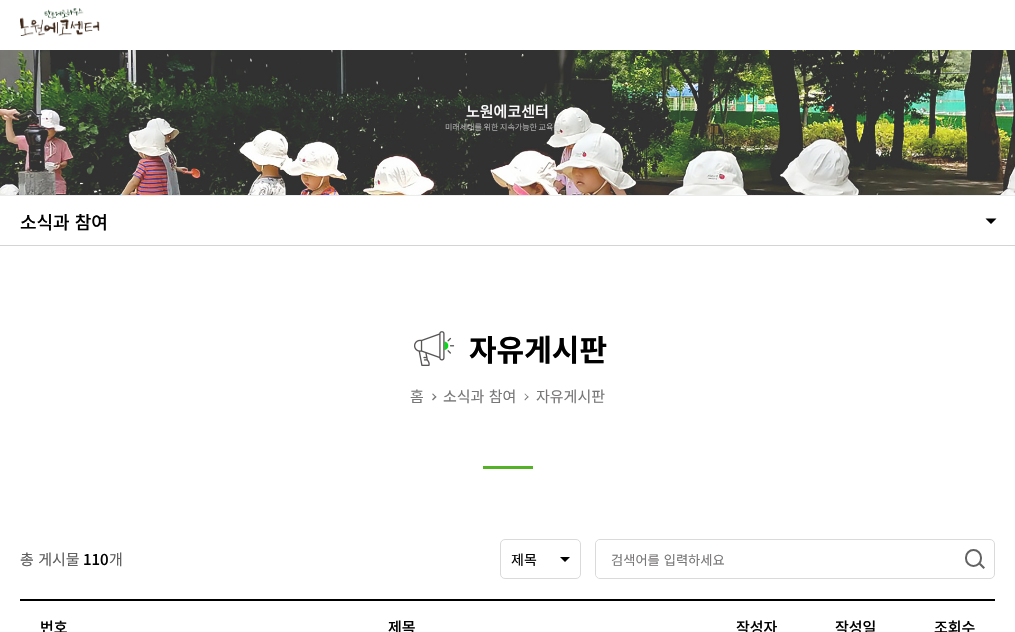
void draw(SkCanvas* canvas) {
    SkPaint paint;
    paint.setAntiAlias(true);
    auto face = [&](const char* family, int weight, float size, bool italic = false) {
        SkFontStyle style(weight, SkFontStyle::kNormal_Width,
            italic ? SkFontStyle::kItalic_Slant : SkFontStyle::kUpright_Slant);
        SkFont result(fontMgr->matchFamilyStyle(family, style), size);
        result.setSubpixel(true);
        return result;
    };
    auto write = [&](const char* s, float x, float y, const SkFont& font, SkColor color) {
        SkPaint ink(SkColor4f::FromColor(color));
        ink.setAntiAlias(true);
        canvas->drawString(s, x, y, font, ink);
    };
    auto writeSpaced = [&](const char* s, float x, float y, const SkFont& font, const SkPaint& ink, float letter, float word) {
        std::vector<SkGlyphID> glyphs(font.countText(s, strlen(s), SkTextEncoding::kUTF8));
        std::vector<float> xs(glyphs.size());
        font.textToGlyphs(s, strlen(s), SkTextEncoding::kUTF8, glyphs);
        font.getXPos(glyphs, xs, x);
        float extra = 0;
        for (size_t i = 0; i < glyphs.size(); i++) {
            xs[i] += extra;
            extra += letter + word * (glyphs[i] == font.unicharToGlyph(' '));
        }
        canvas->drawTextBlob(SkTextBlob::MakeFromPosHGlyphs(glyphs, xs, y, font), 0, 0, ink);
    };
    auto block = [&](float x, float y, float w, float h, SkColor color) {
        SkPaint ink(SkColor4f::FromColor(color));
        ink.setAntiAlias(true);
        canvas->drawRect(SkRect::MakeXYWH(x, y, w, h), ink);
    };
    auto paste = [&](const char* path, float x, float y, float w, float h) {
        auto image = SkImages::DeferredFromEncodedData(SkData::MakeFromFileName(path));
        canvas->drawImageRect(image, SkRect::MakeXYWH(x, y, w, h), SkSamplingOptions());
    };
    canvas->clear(SK_ColorWHITE);
    paste("pic1.png", 20, 8, 80, 28);
    paste("pic2.png", 0, 50, 1015, 145);
    auto kFont1 = face("Noto Sans KR", 500, 15);
    write("노원에코센터", 466, 117, kFont1, SK_ColorWHITE);
    auto kFont2 = face("Noto Sans KR", 300, 8);
    write("미래세대를 위한 지속가능한 교육공", 445, 130, kFont2, SkColorSetRGB(206, 206, 206));
    block(0, 195, 1015, 1, SkColorSetRGB(236, 236, 236));
    block(0, 245, 1015, 1, SkColorSetRGB(212, 212, 212));
    auto kFont3 = face("Noto Sans KR", 500, 18);
    paint.setColor(SK_ColorBLACK);
    writeSpaced("소식과 참여", 20, 229, kFont3, paint, 0, 1);
    canvas->drawPath(SkPathBuilder().moveTo(996.5f, 218.5f).lineTo(991, 224).lineTo(991, 218.5f).close().moveTo(991, 224).lineTo(985.5f, 218.5f).lineTo(991, 218.5f).close().detach(), paint);
    paste("pic3.png", 414, 331, 41, 35);
    auto kFont4 = face("Noto Sans KR", 700, 30);
    write("자유게시판", 469, 361, kFont4, SK_ColorBLACK);
    auto kFont5 = face("Noto Sans KR", 400, 15);
    write("홈", 410, 402, kFont5, SkColorSetRGB(120, 118, 118));
    paint.setColor(SkColorSetRGB(120, 118, 118));
    canvas->drawPath(SkPathBuilder().moveTo(432, 394).lineTo(433, 393.5f).lineTo(436.5f, 397).lineTo(435.5f, 397.5f).close().detach(), paint);
    canvas->drawPath(SkPathBuilder().moveTo(432, 399.5f).lineTo(435.5f, 396).lineTo(436.5f, 397).lineTo(433, 400.5f).close().detach(), paint);
    writeSpaced("소식과 참여", 443, 402, kFont5, paint, 0, 1);
    canvas->drawPath(SkPathBuilder().moveTo(524.5f, 394).lineTo(525, 393.5f).lineTo(528.5f, 397).lineTo(528, 397.5f).close().detach(), paint);
    canvas->drawPath(SkPathBuilder().moveTo(524.5f, 399.5f).lineTo(528, 396).lineTo(528.5f, 397).lineTo(525, 400.5f).close().detach(), paint);
    write("자유게시판", 536, 402, kFont5, SkColorSetRGB(120, 118, 118));
    block(483, 466, 50, 3, SkColorSetRGB(84, 178, 38));
    paint.setColor(SkColorSetRGB(95, 95, 95));
    writeSpaced("총 게시물", 20, 565, kFont5, paint, 0, 1);
    write("110", 83, 565, kFont1, SK_ColorBLACK);
    write("개", 109, 565, kFont5, SkColorSetRGB(95, 95, 95));
    paste("pic4.png", 560, 557, 10, 5);
    paint.setStyle(SkPaint::kStroke_Style);
    paint.setStrokeWidth(1);
    paint.setColor(SkColorSetRGB(218, 218, 218));
    canvas->drawRoundRect(SkRect::MakeXYWH(500.5f, 539.5f, 80, 39), 4.5f, 4.5f, paint);
    auto kFont6 = face("Noto Sans KR", 400, 14);
    write("제목", 511, 565, kFont6, SK_ColorBLACK);
    canvas->drawRoundRect(SkRect::MakeXYWH(595.5f, 539.5f, 399, 39), 4.5f, 4.5f, paint);
    paint.setStyle(SkPaint::kFill_Style);
    paint.setColor(SK_ColorWHITE);
    canvas->drawPath(SkPathBuilder().moveTo(600, 540).lineTo(956, 540).lineTo(956, 578).lineTo(600, 578).cubicTo(598, 578, 596, 576, 596, 574).lineTo(596, 544).cubicTo(596, 542, 598, 540, 600, 540).close().detach(), paint);
    auto kFont7 = face("Noto Sans KR", 400, 13.25f);
    paint.setColor(SkColorSetRGB(120, 118, 118));
    writeSpaced("검색어를 입력하세요", 611, 565, kFont7, paint, 0, 1);
    paint.setStyle(SkPaint::kStroke_Style);
    paint.setStrokeWidth(2);
    paint.setColor(SkColorSetRGB(98, 98, 98));
    canvas->drawRoundRect(SkRect::MakeXYWH(966, 550, 15, 16), 7.5f, 7.5f, paint);
    paint.setStyle(SkPaint::kFill_Style);
    canvas->drawPath(SkPathBuilder().moveTo(980.5f, 563).lineTo(985, 567.5f).lineTo(983.5f, 569).lineTo(979, 564.5f).close().detach(), paint);
    block(20, 599, 975, 2, SK_ColorBLACK);
    write("번호", 40, 633, kFont1, SK_ColorBLACK);
    write("제목", 388, 633, kFont1, SK_ColorBLACK);
    write("작성자", 736, 633, kFont1, SK_ColorBLACK);
    write("작성일", 835, 633, kFont1, SK_ColorBLACK);
    write("조회수", 934, 633, kFont1, SK_ColorBLACK);
}
